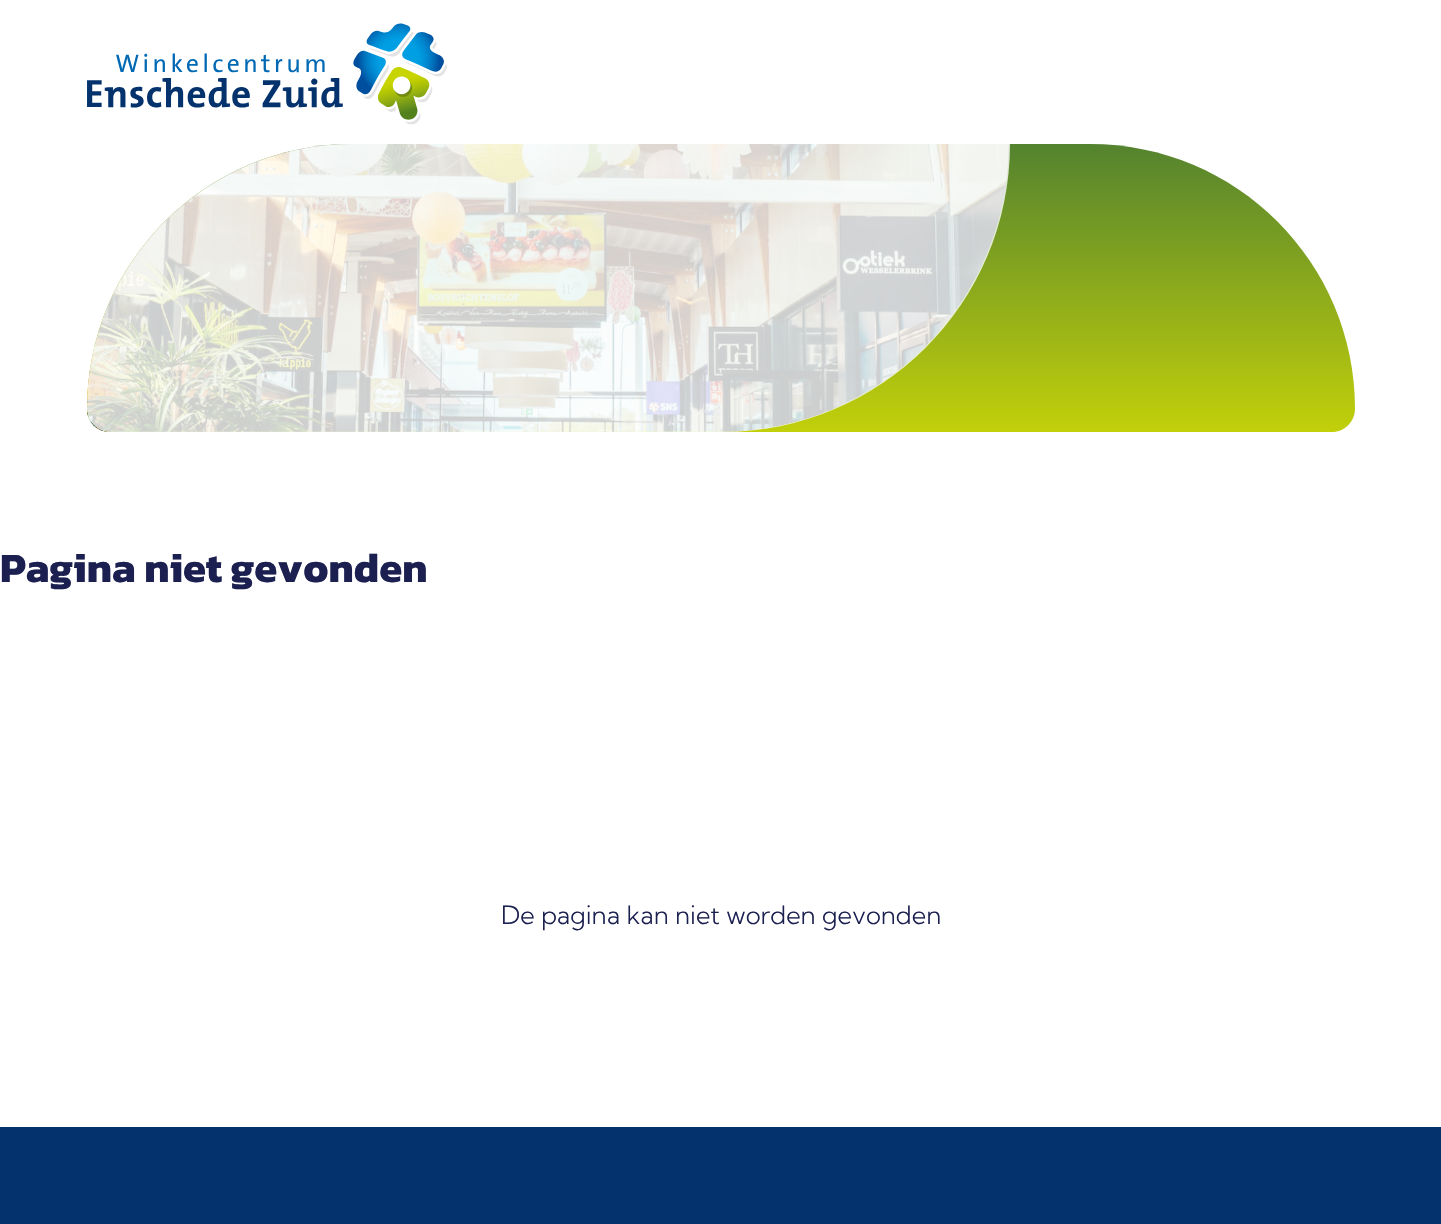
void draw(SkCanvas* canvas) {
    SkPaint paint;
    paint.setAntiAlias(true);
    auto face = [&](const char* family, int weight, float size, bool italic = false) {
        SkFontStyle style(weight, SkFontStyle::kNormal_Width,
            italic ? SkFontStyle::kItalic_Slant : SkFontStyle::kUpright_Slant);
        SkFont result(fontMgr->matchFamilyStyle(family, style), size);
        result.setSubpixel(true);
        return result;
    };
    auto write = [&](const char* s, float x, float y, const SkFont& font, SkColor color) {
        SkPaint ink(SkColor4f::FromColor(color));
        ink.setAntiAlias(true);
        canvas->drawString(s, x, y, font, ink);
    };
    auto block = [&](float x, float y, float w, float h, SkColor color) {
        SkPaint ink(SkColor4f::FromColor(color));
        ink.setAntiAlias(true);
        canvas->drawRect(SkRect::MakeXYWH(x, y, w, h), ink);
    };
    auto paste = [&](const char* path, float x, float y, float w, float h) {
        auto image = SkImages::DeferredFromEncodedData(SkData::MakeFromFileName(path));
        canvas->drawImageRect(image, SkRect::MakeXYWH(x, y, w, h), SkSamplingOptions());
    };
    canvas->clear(SK_ColorWHITE);
    paste("pic1.png", 87, 23, 360, 102);
    {
        const SkColor colors[] = {SkColorSetRGB(84, 131, 47), SkColorSetRGB(194, 208, 10)};
        const float stops[] = {0, 1};
        const SkPoint ends[] = {{721, 144}, {721, 432}};
        paint.setShader(SkGradientShader::MakeLinear(ends, colors, stops, 2, SkTileMode::kClamp));
        paint.setAlpha(255);
    }
    canvas->drawPath(SkPathBuilder().moveTo(352, 144).lineTo(1090, 144).cubicTo(1236.5f, 144, 1355, 262.5f, 1355, 409).cubicTo(1355, 421.5f, 1344.5f, 432, 1332, 432).lineTo(110, 432).cubicTo(97.5f, 432, 87, 421.5f, 87, 409).cubicTo(87, 262.5f, 205.5f, 144, 352, 144).close().detach(), paint);
    paste("pic2.png", 87, 144, 922, 288);
    canvas->save();
    canvas->clipPath(SkPathBuilder().moveTo(352, 144).lineTo(1090, 144).cubicTo(1236.5f, 144, 1355, 262.5f, 1355, 409).cubicTo(1355, 421.5f, 1344.5f, 432, 1332, 432).lineTo(110, 432).cubicTo(97.5f, 432, 87, 421.5f, 87, 409).cubicTo(87, 262.5f, 205.5f, 144, 352, 144).close().detach(), true);
    paint.setShader(nullptr);
    paint.setColor(SkColorSetARGB(204, 255, 255, 255));
    canvas->drawPath(SkPathBuilder().moveTo(87, 144).lineTo(1010, 144).cubicTo(1010, 303, 881, 432, 722, 432).lineTo(110, 432).cubicTo(97.5f, 432, 87, 421.5f, 87, 409).close().detach(), paint);
    canvas->restore();
    auto kFont1 = face("Kanit", 700, 41.75f);
    write("Pagina niet gevonden", 0, 582, kFont1, SkColorSetRGB(28, 32, 80));
    auto kFont2 = face("Kumbh Sans", 300, 25.25f);
    write("De pagina kan niet worden gevonden", 501, 924, kFont2, SkColorSetRGB(28, 32, 80));
    block(0, 1127, 1441, 97, SkColorSetRGB(3, 50, 108));
}
